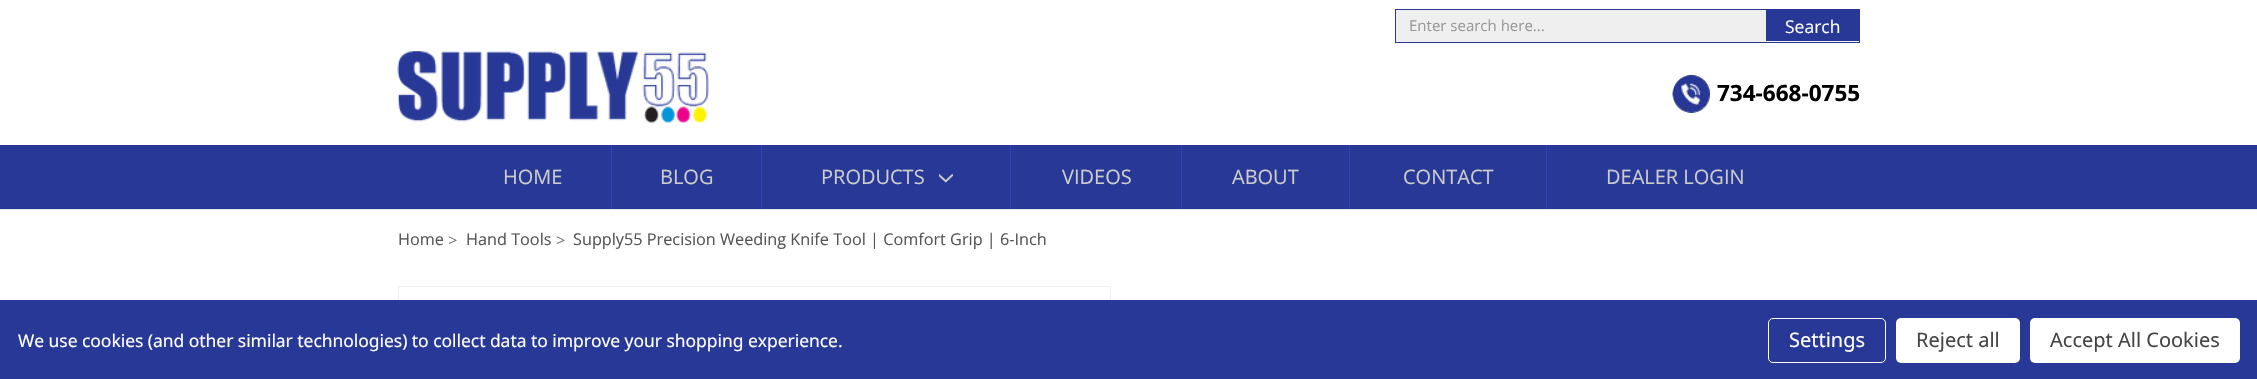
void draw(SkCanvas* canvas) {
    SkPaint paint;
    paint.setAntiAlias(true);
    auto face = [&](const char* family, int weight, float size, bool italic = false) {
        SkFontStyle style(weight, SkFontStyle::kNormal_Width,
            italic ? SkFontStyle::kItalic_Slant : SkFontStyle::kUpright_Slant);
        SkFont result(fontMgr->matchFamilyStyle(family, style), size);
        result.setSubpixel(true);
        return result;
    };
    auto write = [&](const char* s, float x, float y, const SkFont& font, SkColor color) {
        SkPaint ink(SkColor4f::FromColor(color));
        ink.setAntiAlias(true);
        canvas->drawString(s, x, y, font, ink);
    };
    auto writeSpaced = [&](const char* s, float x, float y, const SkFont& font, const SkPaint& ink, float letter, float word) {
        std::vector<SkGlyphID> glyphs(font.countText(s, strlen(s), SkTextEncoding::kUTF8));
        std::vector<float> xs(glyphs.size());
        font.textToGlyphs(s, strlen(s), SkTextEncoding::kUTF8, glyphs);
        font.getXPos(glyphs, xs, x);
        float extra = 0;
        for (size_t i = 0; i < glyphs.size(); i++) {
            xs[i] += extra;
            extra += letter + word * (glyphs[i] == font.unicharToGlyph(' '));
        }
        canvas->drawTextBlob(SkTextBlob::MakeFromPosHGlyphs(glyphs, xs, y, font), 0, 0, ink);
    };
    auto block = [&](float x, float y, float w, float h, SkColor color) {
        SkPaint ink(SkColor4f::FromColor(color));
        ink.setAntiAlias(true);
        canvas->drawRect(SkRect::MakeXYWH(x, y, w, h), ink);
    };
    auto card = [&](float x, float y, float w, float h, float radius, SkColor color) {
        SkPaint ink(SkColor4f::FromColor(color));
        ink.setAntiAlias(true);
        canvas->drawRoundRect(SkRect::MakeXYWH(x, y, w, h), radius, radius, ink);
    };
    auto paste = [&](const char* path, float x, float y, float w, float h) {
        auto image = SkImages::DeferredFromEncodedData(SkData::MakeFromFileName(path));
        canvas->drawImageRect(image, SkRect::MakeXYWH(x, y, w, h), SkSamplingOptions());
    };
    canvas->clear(SK_ColorWHITE);
    block(0, 209, 2257, 1, SkColorSetRGB(229, 229, 229));
    paint.setColor(SkColorSetRGB(239, 239, 239));
    canvas->drawRect(SkRect::MakeXYWH(1395.5f, 9.5f, 464, 33), paint);
    paint.setStyle(SkPaint::kStroke_Style);
    paint.setStrokeWidth(1);
    paint.setColor(SkColorSetRGB(39, 56, 150));
    canvas->drawRect(SkRect::MakeXYWH(1395.5f, 9.5f, 464, 33), paint);
    auto kFont1 = face("Open Sans", 400, 15);
    write("Enter search here...", 1409, 31, kFont1, SkColorSetRGB(153, 153, 153));
    block(1766, 10, 93, 31, SkColorSetRGB(39, 56, 150));
    auto kFont2 = face("Open Sans", 400, 17.5f);
    write("Search", 1785, 33, kFont2, SK_ColorWHITE);
    paste("pic1.png", 397, 51, 312, 72);
    card(1673, 75, 37, 38, 18.5f, SkColorSetRGB(39, 56, 150));
    paste("pic2.png", 1672, 75, 38, 38);
    auto kFont3 = face("Open Sans", 700, 22.5f);
    write("734-668-0755", 1717, 101, kFont3, SK_ColorBLACK);
    block(0, 145, 2257, 64, SkColorSetRGB(39, 56, 150));
    block(611, 145, 1, 64, SkColorSetRGB(46, 68, 187));
    auto kFont4 = face("Open Sans", 400, 20);
    write("HOME", 503, 184, kFont4, SkColorSetRGB(204, 204, 204));
    block(761, 145, 1, 64, SkColorSetRGB(46, 68, 187));
    write("BLOG", 660, 184, kFont4, SkColorSetRGB(204, 204, 204));
    block(1010, 145, 1, 64, SkColorSetRGB(46, 68, 187));
    write("PRODUCTS", 821, 184, kFont4, SkColorSetRGB(204, 204, 204));
    paste("pic3.png", 939, 174, 14, 9);
    block(1181, 145, 1, 64, SkColorSetRGB(46, 68, 187));
    write("VIDEOS", 1062, 184, kFont4, SkColorSetRGB(204, 204, 204));
    block(1349, 145, 1, 64, SkColorSetRGB(46, 68, 187));
    write("ABOUT", 1232, 184, kFont4, SkColorSetRGB(204, 204, 204));
    block(1546, 145, 1, 64, SkColorSetRGB(46, 68, 187));
    write("CONTACT", 1403, 184, kFont4, SkColorSetRGB(204, 204, 204));
    write("DEALER LOGIN", 1606, 184, kFont4, SkColorSetRGB(204, 204, 204));
    auto kFont5 = face("Open Sans", 400, 16.25f);
    write("Home", 398, 245, kFont5, SkColorSetRGB(85, 85, 85));
    write(">", 448, 246, kFont5, SkColorSetRGB(117, 117, 117));
    write("Hand Tools", 466, 245, kFont5, SkColorSetRGB(85, 85, 85));
    write(">", 556, 246, kFont5, SkColorSetRGB(117, 117, 117));
    write("Supply55 Precision Weeding Knife Tool | Comfort Grip | 6-Inch", 573, 245, kFont5, SkColorSetRGB(85, 85, 85));
    paint.setColor(SkColorSetRGB(238, 238, 238));
    canvas->drawRect(SkRect::MakeXYWH(398.5f, 286.5f, 712, 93), paint);
    block(0, 300, 2257, 79, SkColorSetRGB(39, 56, 150));
    auto kFont6 = face("Noto Sans", 400, 17.5f);
    paint.setStyle(SkPaint::kFill_Style);
    paint.setColor(SK_ColorWHITE);
    writeSpaced("We use cookies (and other similar technologies) to collect data to improve your shopping experience.", 18, 347, kFont6, paint, -0.05f, 0);
    paint.setStyle(SkPaint::kStroke_Style);
    canvas->drawRoundRect(SkRect::MakeXYWH(1768.5f, 318.5f, 117, 44), 4.5f, 4.5f, paint);
    auto kFont7 = face("Noto Sans", 400, 20);
    write("Settings", 1789, 347, kFont7, SK_ColorWHITE);
    card(1896, 318, 124, 45, 5, SK_ColorWHITE);
    write("Reject all", 1916, 347, kFont7, SkColorSetRGB(69, 69, 69));
    card(2030, 318, 210, 45, 5, SK_ColorWHITE);
    write("Accept All Cookies", 2050, 347, kFont7, SkColorSetRGB(69, 69, 69));
}
